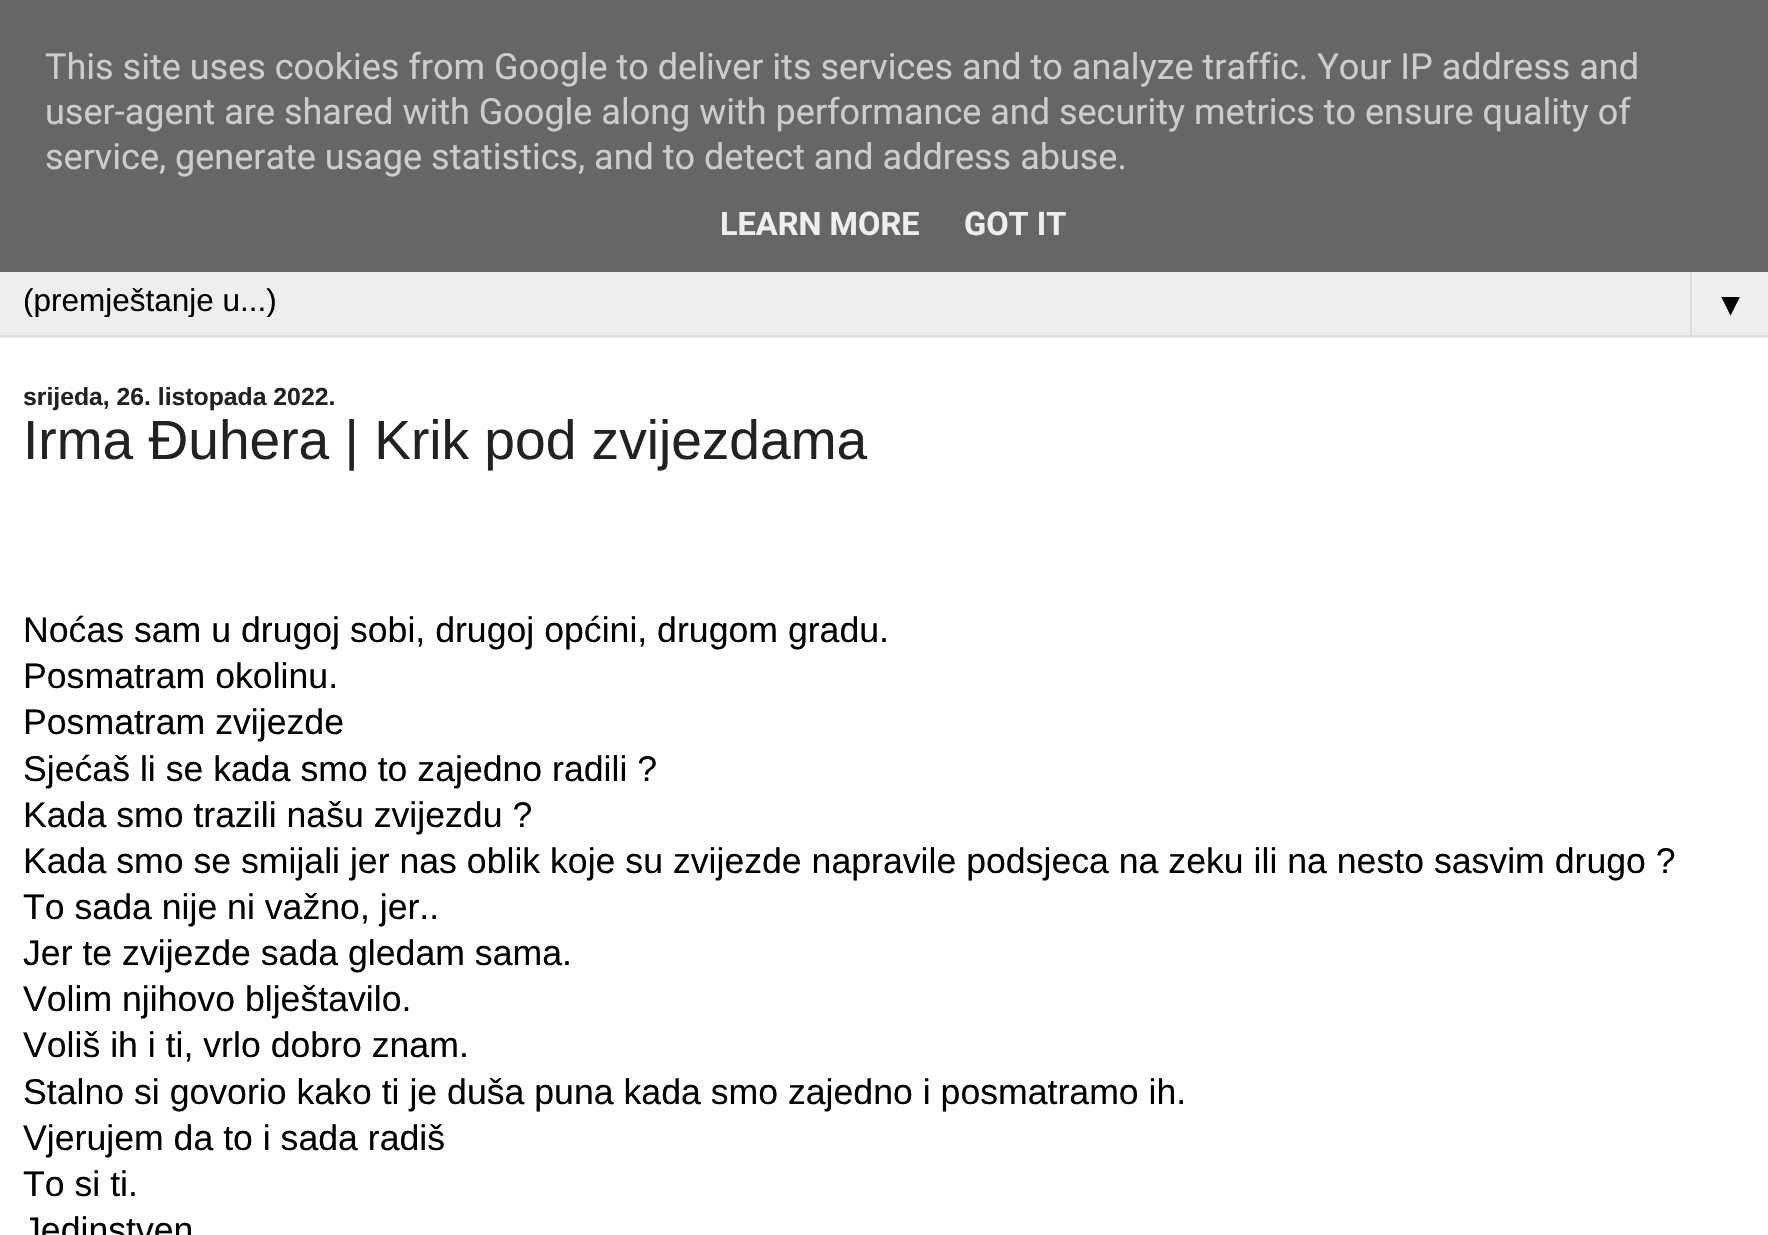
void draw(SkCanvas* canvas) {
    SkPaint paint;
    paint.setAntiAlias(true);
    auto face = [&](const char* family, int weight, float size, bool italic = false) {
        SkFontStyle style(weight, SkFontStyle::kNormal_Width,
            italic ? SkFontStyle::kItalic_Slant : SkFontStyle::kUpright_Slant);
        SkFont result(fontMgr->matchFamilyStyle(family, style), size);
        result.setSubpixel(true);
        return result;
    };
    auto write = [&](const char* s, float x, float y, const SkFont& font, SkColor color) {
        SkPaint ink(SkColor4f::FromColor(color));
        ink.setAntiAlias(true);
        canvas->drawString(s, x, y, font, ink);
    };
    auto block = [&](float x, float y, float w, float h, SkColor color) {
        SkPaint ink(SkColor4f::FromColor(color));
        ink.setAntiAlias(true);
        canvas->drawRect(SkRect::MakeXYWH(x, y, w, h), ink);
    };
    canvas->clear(SK_ColorWHITE);
    block(0, 272, 1768, 66, SkColorSetRGB(238, 238, 238));
    block(0, 335, 1768, 2, SkColorSetRGB(221, 221, 221));
    block(1690, 266, 2, 72, SkColorSetRGB(221, 221, 221));
    block(0, 0, 1768, 272, SkColorSetRGB(102, 102, 102));
    auto kFont1 = face("Roboto", 400, 36);
    write("This site uses cookies from Google to deliver its services and to analyze traffic. Your IP address and", 45, 79, kFont1, SkColorSetRGB(204, 204, 204));
    write("user-agent are shared with Google along with performance and security metrics to ensure quality of", 45, 124, kFont1, SkColorSetRGB(204, 204, 204));
    write("service, generate usage statistics, and to detect and address abuse.", 45, 169, kFont1, SkColorSetRGB(204, 204, 204));
    auto kFont2 = face("Roboto", 700, 32.5f);
    write("LEARN MORE", 720, 235, kFont2, SkColorSetRGB(238, 238, 238));
    write("GOT IT", 964, 235, kFont2, SkColorSetRGB(238, 238, 238));
    canvas->save();
    canvas->clipRect(SkRect::MakeXYWH(23, 281, 1723, 36));
    auto kFont3 = face("Liberation Sans", 400, 31.5f);
    write("(premještanje u...)", 23, 311, kFont3, SK_ColorBLACK);
    canvas->restore();
    write("▼", 1715, 315, kFont3, SK_ColorBLACK);
    auto kFont4 = face("Liberation Sans", 700, 24.75f);
    write("srijeda, 26. listopada 2022.", 23, 405, kFont4, SkColorSetRGB(34, 34, 34));
    auto kFont5 = face("Liberation Sans", 400, 55.1f);
    write("Irma Đuhera | Krik pod zvijezdama", 23, 459, kFont5, SkColorSetRGB(34, 34, 34));
    auto kFont6 = face("Liberation Sans", 400, 35.65f);
    write("Noćas sam u drugoj sobi, drugoj općini, drugom gradu.", 23, 642, kFont6, SK_ColorBLACK);
    write("Posmatram okolinu.", 23, 688, kFont6, SK_ColorBLACK);
    write("Posmatram zvijezde", 23, 734, kFont6, SK_ColorBLACK);
    write("Sjećaš li se kada smo to zajedno radili ?", 23, 781, kFont6, SK_ColorBLACK);
    write("Kada smo trazili našu zvijezdu ?", 23, 827, kFont6, SK_ColorBLACK);
    write("Kada smo se smijali jer nas oblik koje su zvijezde napravile podsjeca na zeku ili na nesto sasvim drugo ?", 23, 873, kFont6, SK_ColorBLACK);
    write("To sada nije ni važno, jer..", 23, 919, kFont6, SK_ColorBLACK);
    write("Jer te zvijezde sada gledam sama.", 23, 965, kFont6, SK_ColorBLACK);
    write("Volim njihovo blještavilo.", 23, 1011, kFont6, SK_ColorBLACK);
    write("Voliš ih i ti, vrlo dobro znam.", 23, 1057, kFont6, SK_ColorBLACK);
    write("Stalno si govorio kako ti je duša puna kada smo zajedno i posmatramo ih.", 23, 1104, kFont6, SK_ColorBLACK);
    write("Vjerujem da to i sada radiš", 23, 1150, kFont6, SK_ColorBLACK);
    write("To si ti.", 23, 1196, kFont6, SK_ColorBLACK);
    write("Jedinstven", 23, 1242, kFont6, SK_ColorBLACK);
}
